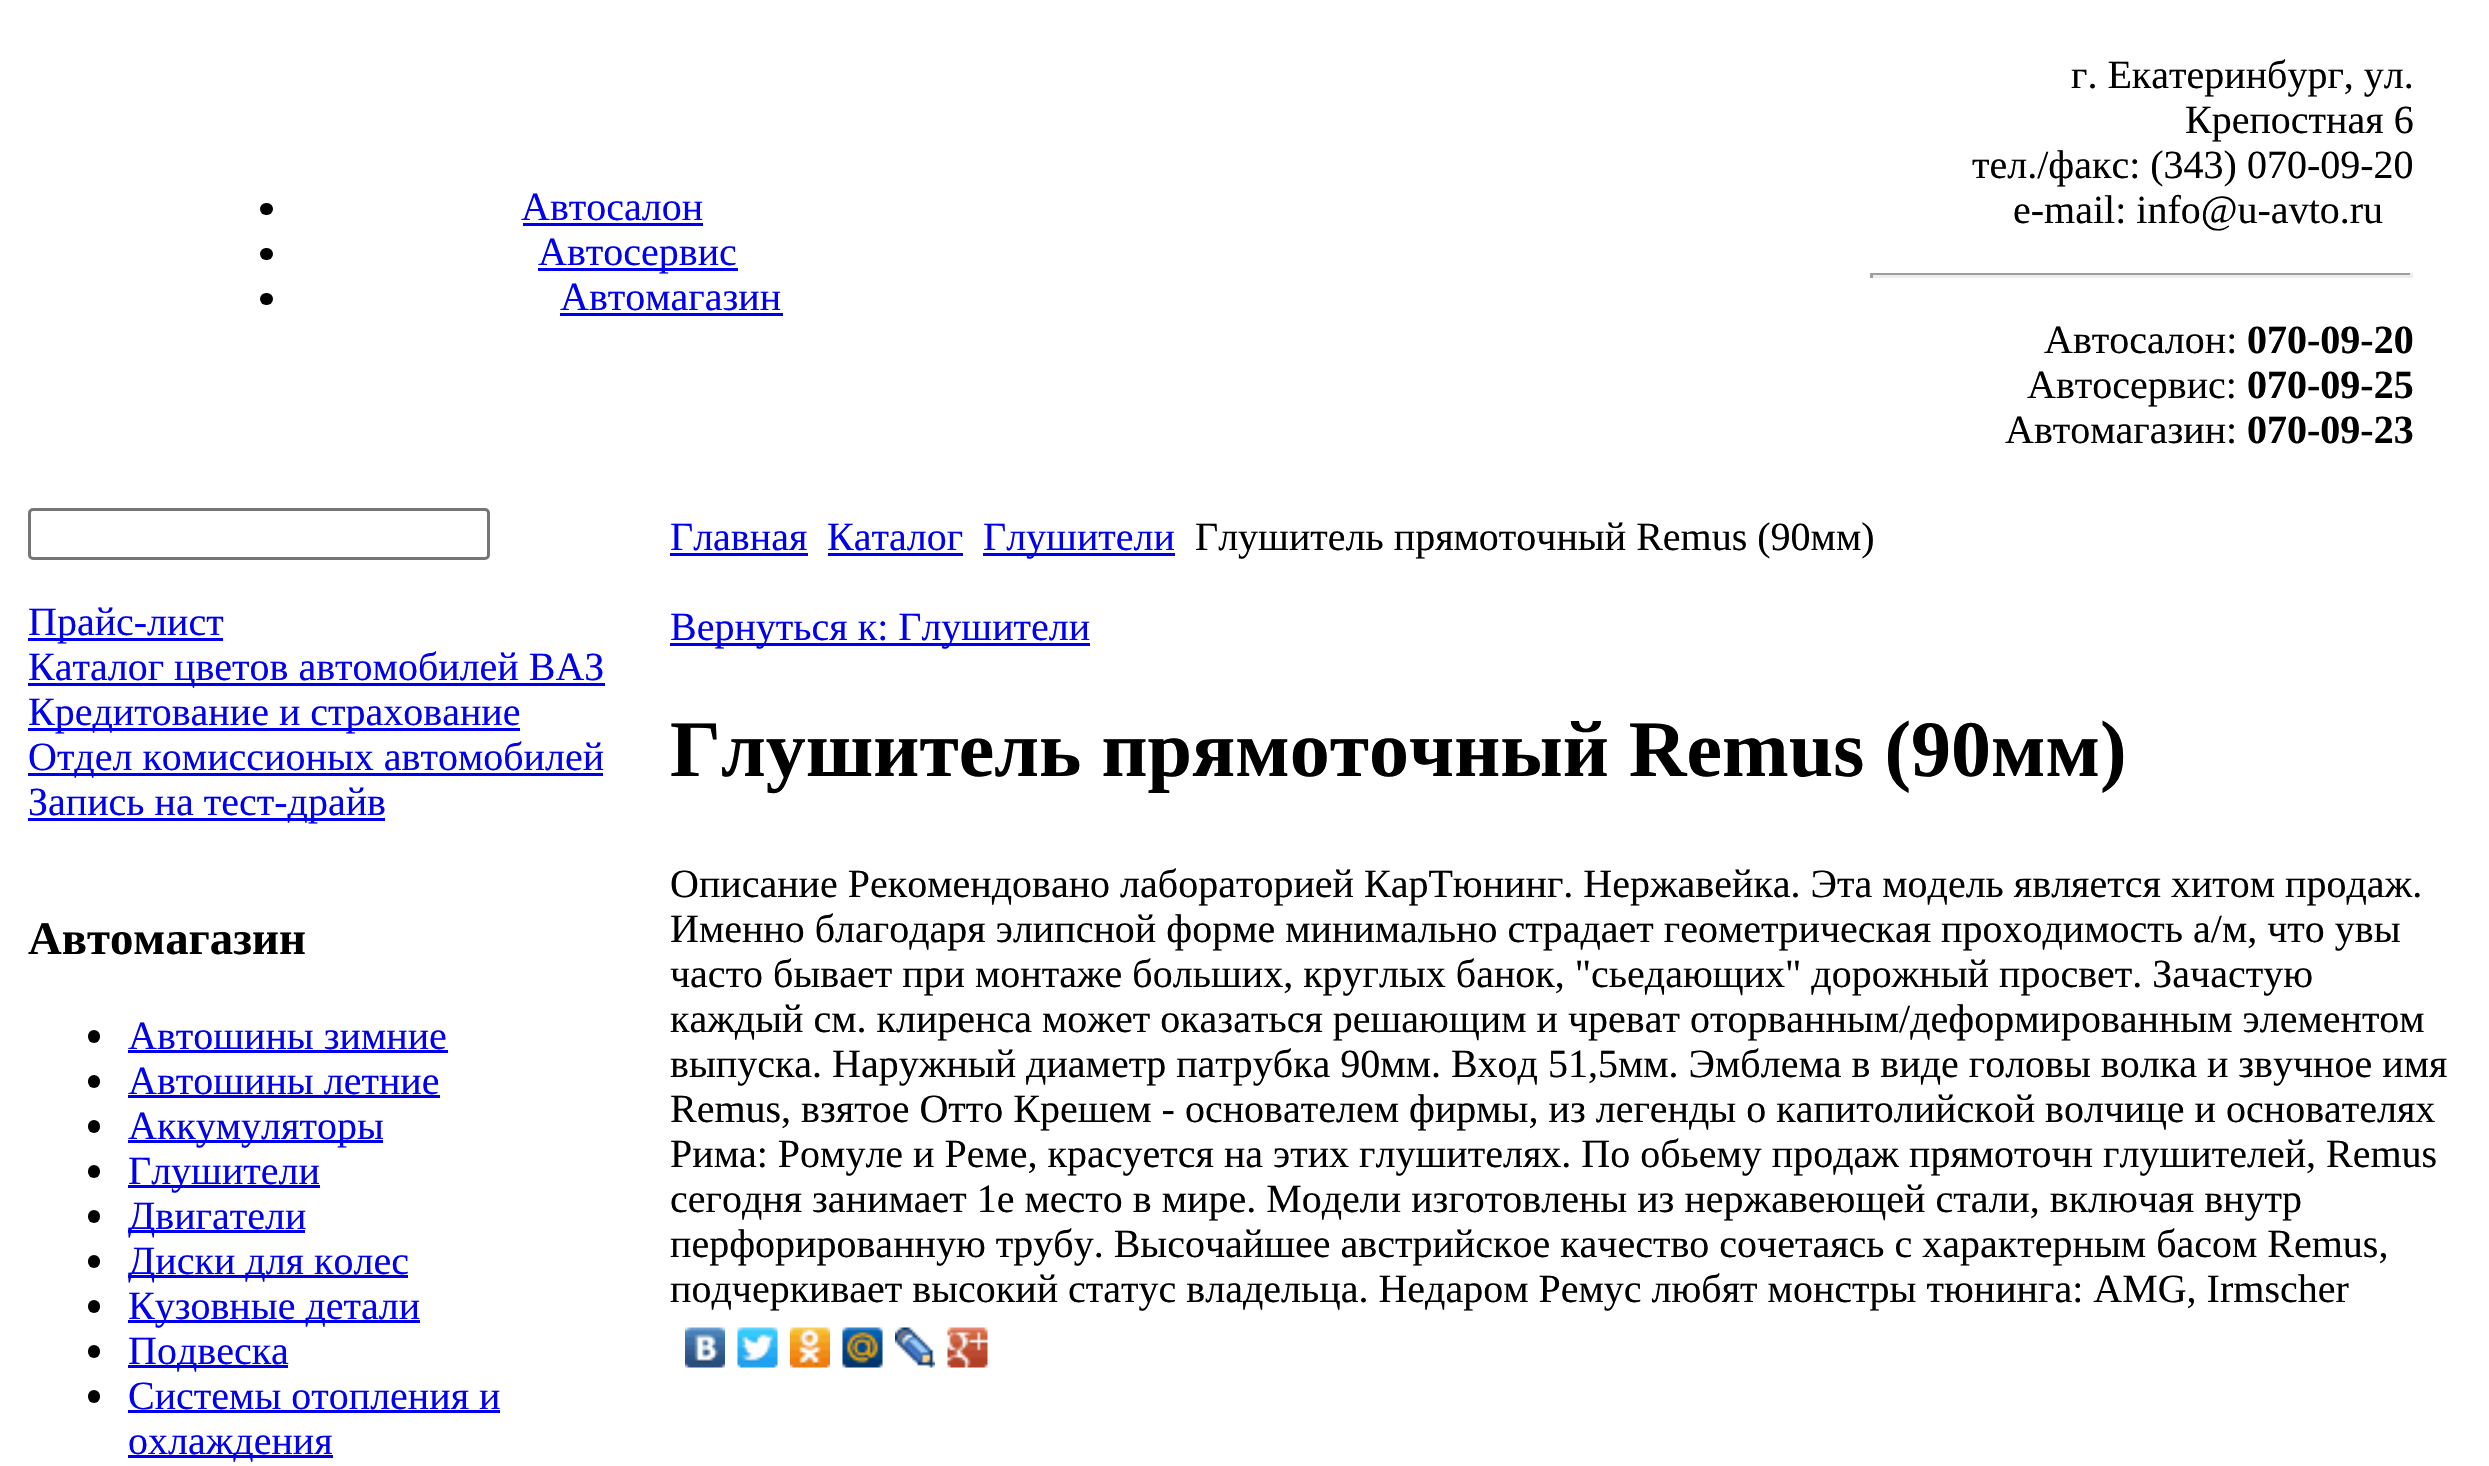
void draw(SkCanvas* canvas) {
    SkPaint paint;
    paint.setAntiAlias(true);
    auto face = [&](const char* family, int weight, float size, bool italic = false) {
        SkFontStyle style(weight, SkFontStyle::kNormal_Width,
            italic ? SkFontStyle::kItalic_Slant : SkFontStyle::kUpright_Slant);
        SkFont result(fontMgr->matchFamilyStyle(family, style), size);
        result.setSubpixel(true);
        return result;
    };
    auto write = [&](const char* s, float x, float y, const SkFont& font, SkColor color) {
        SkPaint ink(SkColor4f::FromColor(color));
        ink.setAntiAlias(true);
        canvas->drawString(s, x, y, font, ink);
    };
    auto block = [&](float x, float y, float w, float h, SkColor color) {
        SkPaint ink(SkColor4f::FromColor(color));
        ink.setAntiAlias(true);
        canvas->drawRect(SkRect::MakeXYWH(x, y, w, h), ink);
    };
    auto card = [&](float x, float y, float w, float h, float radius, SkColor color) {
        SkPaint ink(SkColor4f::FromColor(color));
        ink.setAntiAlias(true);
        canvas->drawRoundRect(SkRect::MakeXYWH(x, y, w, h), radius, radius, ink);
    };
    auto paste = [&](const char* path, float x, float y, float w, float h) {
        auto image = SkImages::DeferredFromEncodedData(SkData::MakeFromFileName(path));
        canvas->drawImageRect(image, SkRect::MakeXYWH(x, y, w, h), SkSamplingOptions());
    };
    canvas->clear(SK_ColorWHITE);
    card(260, 203, 13, 12, 6, SK_ColorBLACK);
    auto kFont1 = face("Liberation Serif", 400, 40);
    write("Автосалон", 521, 220, kFont1, SkColorSetRGB(0, 0, 238));
    block(523, 223, 180, 3, SkColorSetRGB(0, 0, 238));
    card(260, 248, 13, 12, 6, SK_ColorBLACK);
    block(538, 268, 200, 3, SkColorSetRGB(0, 0, 238));
    write("Автосервис", 538, 265, kFont1, SkColorSetRGB(0, 0, 238));
    card(260, 293, 13, 12, 6, SK_ColorBLACK);
    write("Автомагазин", 560, 310, kFont1, SkColorSetRGB(0, 0, 238));
    block(560, 313, 223, 3, SkColorSetRGB(0, 0, 238));
    write("г. Екатеринбург, ул.", 2071, 88, kFont1, SK_ColorBLACK);
    write("Крепостная 6", 2185, 133, kFont1, SK_ColorBLACK);
    write("тел./факс: (343) 070-09-20", 1972, 178, kFont1, SK_ColorBLACK);
    write("e-mail: info@u-avto.ru", 2013, 223, kFont1, SK_ColorBLACK);
    block(1870, 273, 543, 2, SkColorSetRGB(159, 159, 159));
    block(2410, 273, 3, 5, SkColorSetRGB(238, 238, 238));
    block(1870, 275, 543, 3, SkColorSetRGB(238, 238, 238));
    block(1870, 273, 3, 5, SkColorSetRGB(159, 159, 159));
    write("Автосалон:", 2044, 353, kFont1, SK_ColorBLACK);
    auto kFont2 = face("Liberation Serif", 700, 40);
    write("070-09-20", 2247, 353, kFont2, SK_ColorBLACK);
    write("Автосервис:", 2027, 398, kFont1, SK_ColorBLACK);
    write("070-09-25", 2247, 398, kFont2, SK_ColorBLACK);
    write("Автомагазин:", 2005, 443, kFont1, SK_ColorBLACK);
    write("070-09-23", 2247, 443, kFont2, SK_ColorBLACK);
    paint.setStyle(SkPaint::kStroke_Style);
    paint.setStrokeWidth(3);
    paint.setColor(SkColorSetRGB(118, 118, 118));
    canvas->drawRoundRect(SkRect::MakeXYWH(29.5f, 509.5f, 459, 49), 3.5f, 3.5f, paint);
    block(28, 638, 195, 3, SkColorSetRGB(0, 0, 238));
    write("Прайс-лист", 28, 635, kFont1, SkColorSetRGB(0, 0, 238));
    block(28, 683, 577, 3, SkColorSetRGB(0, 0, 238));
    write("Каталог цветов автомобилей ВАЗ", 28, 680, kFont1, SkColorSetRGB(0, 0, 238));
    block(28, 728, 492, 3, SkColorSetRGB(0, 0, 238));
    write("Кредитование и страхование", 28, 725, kFont1, SkColorSetRGB(0, 0, 238));
    block(28, 773, 575, 3, SkColorSetRGB(0, 0, 238));
    write("Отдел комиссионых автомобилей", 28, 770, kFont1, SkColorSetRGB(0, 0, 238));
    block(28, 818, 357, 3, SkColorSetRGB(0, 0, 238));
    write("Запись на тест-драйв", 28, 815, kFont1, SkColorSetRGB(0, 0, 238));
    auto kFont3 = face("Liberation Serif", 700, 46.75f);
    write("Автомагазин", 28, 954, kFont3, SK_ColorBLACK);
    card(88, 1030, 12, 13, 6, SK_ColorBLACK);
    write("Автошины зимние", 128, 1049, kFont1, SkColorSetRGB(0, 0, 238));
    block(128, 1050, 320, 3, SkColorSetRGB(0, 0, 238));
    card(88, 1075, 12, 13, 6, SK_ColorBLACK);
    write("Автошины летние", 128, 1094, kFont1, SkColorSetRGB(0, 0, 238));
    block(128, 1095, 312, 3, SkColorSetRGB(0, 0, 238));
    card(88, 1120, 12, 13, 6, SK_ColorBLACK);
    block(128, 1140, 255, 3, SkColorSetRGB(0, 0, 238));
    write("Аккумуляторы", 128, 1139, kFont1, SkColorSetRGB(0, 0, 238));
    card(88, 1165, 12, 13, 6, SK_ColorBLACK);
    block(128, 1185, 192, 3, SkColorSetRGB(0, 0, 238));
    write("Глушители", 128, 1184, kFont1, SkColorSetRGB(0, 0, 238));
    card(88, 1210, 12, 13, 6, SK_ColorBLACK);
    block(128, 1230, 177, 3, SkColorSetRGB(0, 0, 238));
    write("Двигатели", 128, 1229, kFont1, SkColorSetRGB(0, 0, 238));
    card(88, 1255, 12, 13, 6, SK_ColorBLACK);
    block(128, 1275, 280, 3, SkColorSetRGB(0, 0, 238));
    write("Диски для колес", 128, 1274, kFont1, SkColorSetRGB(0, 0, 238));
    card(88, 1300, 12, 13, 6, SK_ColorBLACK);
    block(128, 1320, 292, 3, SkColorSetRGB(0, 0, 238));
    write("Кузовные детали", 128, 1319, kFont1, SkColorSetRGB(0, 0, 238));
    card(88, 1345, 12, 13, 6, SK_ColorBLACK);
    block(128, 1365, 160, 3, SkColorSetRGB(0, 0, 238));
    write("Подвеска", 128, 1364, kFont1, SkColorSetRGB(0, 0, 238));
    card(88, 1390, 12, 13, 6, SK_ColorBLACK);
    write("Системы отопления и", 128, 1409, kFont1, SkColorSetRGB(0, 0, 238));
    block(128, 1410, 372, 3, SkColorSetRGB(0, 0, 238));
    block(128, 1455, 205, 3, SkColorSetRGB(0, 0, 238));
    write("охлаждения", 128, 1454, kFont1, SkColorSetRGB(0, 0, 238));
    write("Главная", 670, 550, kFont1, SkColorSetRGB(0, 0, 238));
    block(670, 553, 138, 3, SkColorSetRGB(0, 0, 238));
    write("Каталог", 827, 550, kFont1, SkColorSetRGB(0, 0, 238));
    block(828, 553, 135, 3, SkColorSetRGB(0, 0, 238));
    block(983, 553, 192, 3, SkColorSetRGB(0, 0, 238));
    write("Глушители", 983, 550, kFont1, SkColorSetRGB(0, 0, 238));
    write("Глушитель прямоточный Remus (90мм)", 1195, 550, kFont1, SK_ColorBLACK);
    block(670, 643, 420, 3, SkColorSetRGB(0, 0, 238));
    write("Вернуться к: Глушители", 670, 640, kFont1, SkColorSetRGB(0, 0, 238));
    auto kFont4 = face("Liberation Serif", 700, 80);
    write("Глушитель прямоточный Remus (90мм)", 670, 776, kFont4, SK_ColorBLACK);
    write("Описание Рекомендовано лабораторией КарТюнинг. Нержавейка. Эта модель является хитом продаж.", 670, 897, kFont1, SK_ColorBLACK);
    write("Именно благодаря элипсной форме минимально страдает геометрическая проходимость а/м, что увы", 670, 942, kFont1, SK_ColorBLACK);
    write("часто бывает при монтаже больших, круглых банок, \"сьедающих\" дорожный просвет. Зачастую", 670, 987, kFont1, SK_ColorBLACK);
    write("каждый см. клиренса может оказаться решающим и чреват оторванным/деформированным элементом", 670, 1032, kFont1, SK_ColorBLACK);
    write("выпуска. Наружный диаметр патрубка 90мм. Вход 51,5мм. Эмблема в виде головы волка и звучное имя", 670, 1077, kFont1, SK_ColorBLACK);
    write("Remus, взятое Отто Крешем - основателем фирмы, из легенды о капитолийской волчице и основателях", 670, 1122, kFont1, SK_ColorBLACK);
    write("Рима: Ромуле и Реме, красуется на этих глушителях. По обьему продаж прямоточн глушителей, Remus", 670, 1167, kFont1, SK_ColorBLACK);
    write("сегодня занимает 1е место в мире. Модели изготовлены из нержавеющей стали, включая внутр", 670, 1212, kFont1, SK_ColorBLACK);
    write("перфорированную трубу. Высочайшее австрийское качество сочетаясь с характерным басом Remus,", 670, 1257, kFont1, SK_ColorBLACK);
    write("подчеркивает высокий статус владельца. Недаром Ремус любят монстры тюнинга: AMG, Irmscher", 670, 1302, kFont1, SK_ColorBLACK);
    paste("pic1.png", 685, 1327, 40, 41);
    paste("pic2.png", 737, 1327, 41, 41);
    paste("pic3.png", 790, 1327, 40, 41);
    paste("pic4.png", 842, 1327, 41, 41);
    paste("pic5.png", 895, 1327, 40, 41);
    paste("pic6.png", 947, 1327, 41, 41);
}
